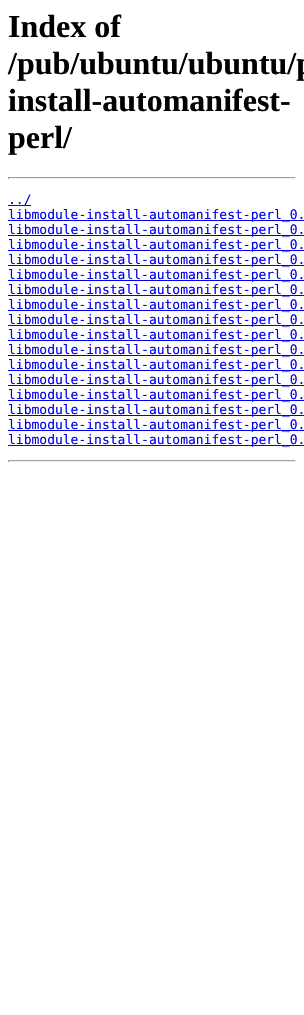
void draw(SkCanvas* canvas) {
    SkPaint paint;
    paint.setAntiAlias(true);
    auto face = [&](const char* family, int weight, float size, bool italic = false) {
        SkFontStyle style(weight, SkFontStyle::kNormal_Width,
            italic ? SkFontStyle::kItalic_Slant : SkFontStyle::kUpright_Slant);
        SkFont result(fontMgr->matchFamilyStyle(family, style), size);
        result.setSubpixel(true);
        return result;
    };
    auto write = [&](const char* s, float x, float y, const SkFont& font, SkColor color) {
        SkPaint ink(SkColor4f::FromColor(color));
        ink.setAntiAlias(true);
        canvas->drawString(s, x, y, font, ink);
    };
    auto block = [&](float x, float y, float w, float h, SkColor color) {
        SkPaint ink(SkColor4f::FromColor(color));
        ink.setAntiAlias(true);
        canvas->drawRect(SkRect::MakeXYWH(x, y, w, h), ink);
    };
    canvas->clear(SK_ColorWHITE);
    auto kFont1 = face("Liberation Serif", 700, 32);
    write("Index of", 8, 37, kFont1, SK_ColorBLACK);
    write("/pub/ubuntu/ubuntu/p", 8, 74, kFont1, SK_ColorBLACK);
    write("install-automanifest-", 8, 111, kFont1, SK_ColorBLACK);
    write("perl/", 8, 148, kFont1, SK_ColorBLACK);
    block(8, 177, 288, 1, SkColorSetRGB(159, 159, 159));
    block(295, 177, 1, 2, SkColorSetRGB(238, 238, 238));
    block(8, 178, 288, 1, SkColorSetRGB(238, 238, 238));
    block(8, 177, 1, 2, SkColorSetRGB(159, 159, 159));
    block(8, 205, 23, 1, SkColorSetRGB(0, 0, 238));
    auto kFont2 = face("DejaVu Sans Mono", 400, 13);
    write("../", 8, 204, kFont2, SkColorSetRGB(0, 0, 238));
    block(8, 220, 296, 1, SkColorSetRGB(0, 0, 238));
    write("libmodule-install-automanifest-perl_0.", 8, 219, kFont2, SkColorSetRGB(0, 0, 238));
    block(8, 235, 296, 1, SkColorSetRGB(0, 0, 238));
    write("libmodule-install-automanifest-perl_0.", 8, 234, kFont2, SkColorSetRGB(0, 0, 238));
    block(8, 250, 296, 1, SkColorSetRGB(0, 0, 238));
    write("libmodule-install-automanifest-perl_0.", 8, 249, kFont2, SkColorSetRGB(0, 0, 238));
    block(8, 265, 296, 1, SkColorSetRGB(0, 0, 238));
    write("libmodule-install-automanifest-perl_0.", 8, 264, kFont2, SkColorSetRGB(0, 0, 238));
    block(8, 280, 296, 1, SkColorSetRGB(0, 0, 238));
    write("libmodule-install-automanifest-perl_0.", 8, 279, kFont2, SkColorSetRGB(0, 0, 238));
    block(8, 295, 296, 1, SkColorSetRGB(0, 0, 238));
    write("libmodule-install-automanifest-perl_0.", 8, 294, kFont2, SkColorSetRGB(0, 0, 238));
    block(8, 310, 296, 1, SkColorSetRGB(0, 0, 238));
    write("libmodule-install-automanifest-perl_0.", 8, 309, kFont2, SkColorSetRGB(0, 0, 238));
    block(8, 325, 296, 1, SkColorSetRGB(0, 0, 238));
    write("libmodule-install-automanifest-perl_0.", 8, 324, kFont2, SkColorSetRGB(0, 0, 238));
    block(8, 340, 296, 1, SkColorSetRGB(0, 0, 238));
    write("libmodule-install-automanifest-perl_0.", 8, 339, kFont2, SkColorSetRGB(0, 0, 238));
    block(8, 355, 296, 1, SkColorSetRGB(0, 0, 238));
    write("libmodule-install-automanifest-perl_0.", 8, 354, kFont2, SkColorSetRGB(0, 0, 238));
    block(8, 370, 296, 1, SkColorSetRGB(0, 0, 238));
    write("libmodule-install-automanifest-perl_0.", 8, 369, kFont2, SkColorSetRGB(0, 0, 238));
    block(8, 385, 296, 1, SkColorSetRGB(0, 0, 238));
    write("libmodule-install-automanifest-perl_0.", 8, 384, kFont2, SkColorSetRGB(0, 0, 238));
    block(8, 400, 296, 1, SkColorSetRGB(0, 0, 238));
    write("libmodule-install-automanifest-perl_0.", 8, 399, kFont2, SkColorSetRGB(0, 0, 238));
    block(8, 415, 296, 1, SkColorSetRGB(0, 0, 238));
    write("libmodule-install-automanifest-perl_0.", 8, 414, kFont2, SkColorSetRGB(0, 0, 238));
    block(8, 430, 296, 1, SkColorSetRGB(0, 0, 238));
    write("libmodule-install-automanifest-perl_0.", 8, 429, kFont2, SkColorSetRGB(0, 0, 238));
    block(8, 445, 296, 1, SkColorSetRGB(0, 0, 238));
    write("libmodule-install-automanifest-perl_0.", 8, 444, kFont2, SkColorSetRGB(0, 0, 238));
    block(8, 460, 288, 1, SkColorSetRGB(159, 159, 159));
    block(295, 460, 1, 2, SkColorSetRGB(238, 238, 238));
    block(8, 461, 288, 1, SkColorSetRGB(238, 238, 238));
    block(8, 460, 1, 2, SkColorSetRGB(159, 159, 159));
}
